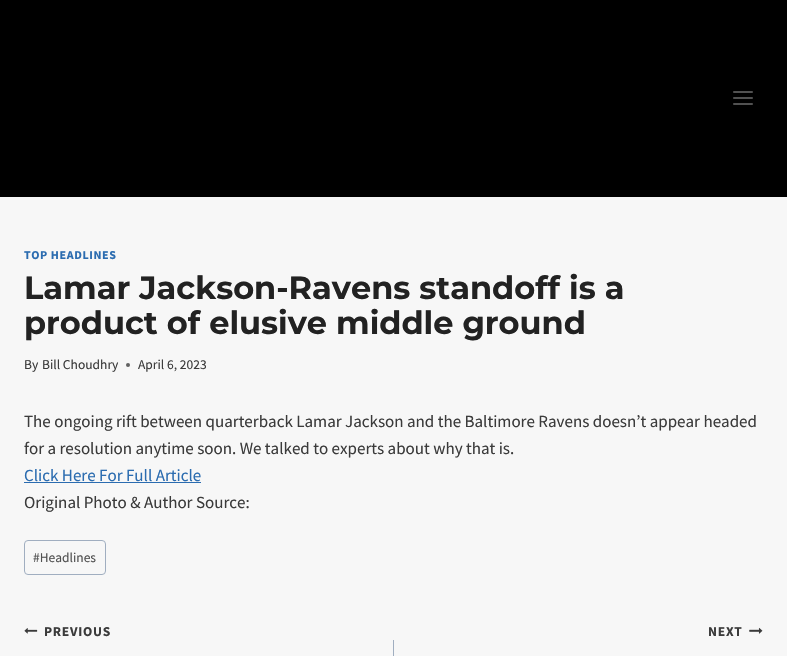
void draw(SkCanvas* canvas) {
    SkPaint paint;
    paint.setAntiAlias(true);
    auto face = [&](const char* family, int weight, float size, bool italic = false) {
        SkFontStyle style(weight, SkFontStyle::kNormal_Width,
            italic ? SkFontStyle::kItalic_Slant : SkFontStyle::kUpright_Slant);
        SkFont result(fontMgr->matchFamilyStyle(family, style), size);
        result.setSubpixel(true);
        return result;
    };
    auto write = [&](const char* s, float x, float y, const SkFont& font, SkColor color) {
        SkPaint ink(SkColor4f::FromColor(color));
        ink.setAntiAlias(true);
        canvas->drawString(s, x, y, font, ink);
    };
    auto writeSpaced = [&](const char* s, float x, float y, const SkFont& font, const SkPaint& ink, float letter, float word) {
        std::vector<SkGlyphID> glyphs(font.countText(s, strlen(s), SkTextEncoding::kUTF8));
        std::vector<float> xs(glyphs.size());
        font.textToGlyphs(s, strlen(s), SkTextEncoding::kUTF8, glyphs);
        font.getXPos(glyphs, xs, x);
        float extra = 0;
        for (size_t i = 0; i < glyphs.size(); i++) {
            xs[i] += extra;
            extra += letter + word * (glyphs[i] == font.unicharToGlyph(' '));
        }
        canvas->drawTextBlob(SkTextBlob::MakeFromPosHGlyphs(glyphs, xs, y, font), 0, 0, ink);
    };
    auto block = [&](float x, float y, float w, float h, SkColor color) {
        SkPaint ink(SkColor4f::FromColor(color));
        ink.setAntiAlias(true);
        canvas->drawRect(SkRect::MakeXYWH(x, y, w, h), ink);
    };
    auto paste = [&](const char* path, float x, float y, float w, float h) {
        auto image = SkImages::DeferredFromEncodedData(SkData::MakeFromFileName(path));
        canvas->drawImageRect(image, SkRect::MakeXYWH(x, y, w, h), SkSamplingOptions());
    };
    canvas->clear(SkColorSetRGB(247, 247, 247));
    block(0, 0, 787, 197, SK_ColorBLACK);
    paste("pic1.png", 733, 91, 20, 14);
    auto kFont1 = face("Source Sans Pro", 700, 12);
    paint.setColor(SkColorSetRGB(43, 108, 176));
    writeSpaced("TOP HEADLINES", 24, 259, kFont1, paint, 0.6f, 0);
    auto kFont2 = face("Montserrat", 100, 32);
    write("Lamar Jackson-Ravens standoff is a", 24, 299, kFont2, SkColorSetRGB(34, 34, 34));
    write("product of elusive middle ground", 24, 334, kFont2, SkColorSetRGB(34, 34, 34));
    auto kFont3 = face("Source Sans Pro", 400, 13.5f);
    write("By", 24, 369, kFont3, SkColorSetRGB(59, 59, 59));
    write("Bill Choudhry", 42, 369, kFont3, SkColorSetRGB(59, 59, 59));
    paint.setColor(SkColorSetRGB(97, 97, 97));
    canvas->drawCircle(128, 365, 2, paint);
    write("April 6, 2023", 138, 369, kFont3, SkColorSetRGB(59, 59, 59));
    auto kFont4 = face("Source Sans Pro", 400, 17);
    write("The ongoing rift between quarterback Lamar Jackson and the Baltimore Ravens doesn’t appear headed", 24, 427, kFont4, SkColorSetRGB(59, 59, 59));
    write("for a resolution anytime soon. We talked to experts about why that is.", 24, 454, kFont4, SkColorSetRGB(59, 59, 59));
    write("Click Here For Full Article", 24, 481, kFont4, SkColorSetRGB(43, 108, 176));
    block(24, 482, 177, 1, SkColorSetRGB(43, 108, 176));
    write("Original Photo & Author Source:", 24, 508, kFont4, SkColorSetRGB(59, 59, 59));
    paint.setStyle(SkPaint::kStroke_Style);
    paint.setStrokeWidth(1);
    paint.setColor(SkColorSetRGB(160, 174, 192));
    canvas->drawRoundRect(SkRect::MakeXYWH(24.5f, 540.5f, 81, 34), 3.5f, 3.5f, paint);
    write("#Headlines", 33, 562, kFont3, SkColorSetRGB(81, 81, 81));
    paste("pic2.png", 24, 628, 14, 6);
    auto kFont5 = face("Source Sans Pro", 700, 13.5f);
    paint.setStyle(SkPaint::kFill_Style);
    paint.setColor(SkColorSetRGB(59, 59, 59));
    writeSpaced("PREVIOUS", 44, 636, kFont5, paint, 0.75f, 0);
    block(393, 640, 1, 16, SkColorSetRGB(160, 174, 192));
    writeSpaced("NEXT", 708, 636, kFont5, paint, 0.75f, 0);
    paste("pic3.png", 749, 627, 14, 7);
}
